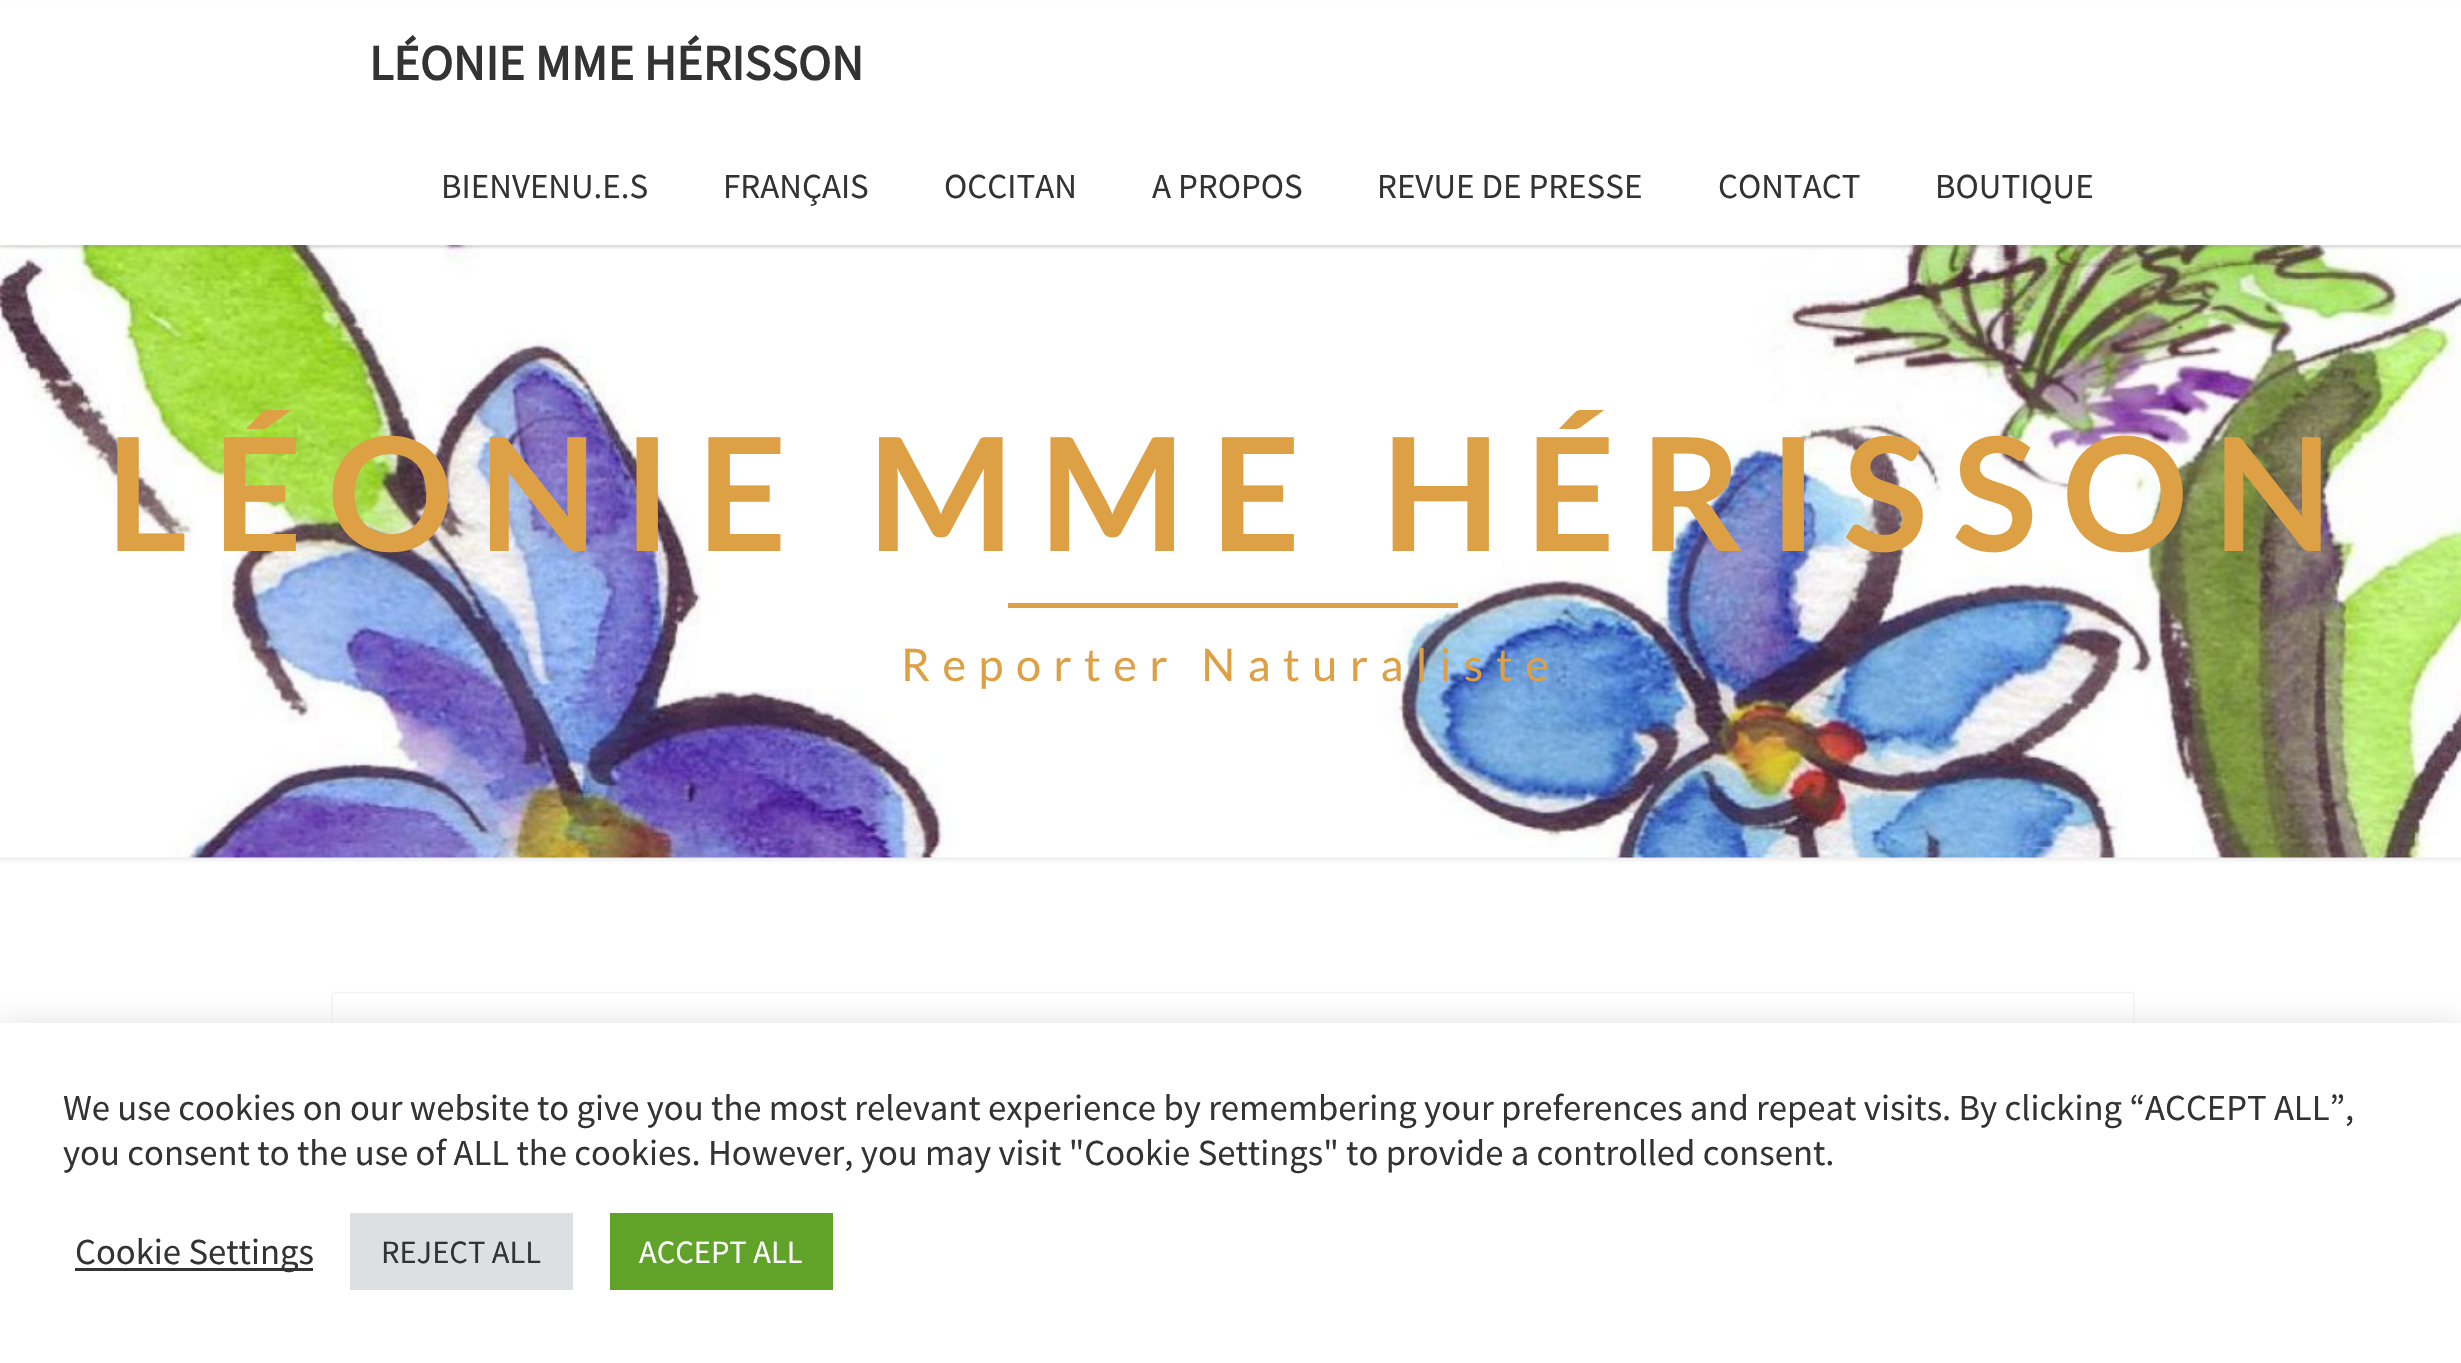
void draw(SkCanvas* canvas) {
    SkPaint paint;
    paint.setAntiAlias(true);
    auto face = [&](const char* family, int weight, float size, bool italic = false) {
        SkFontStyle style(weight, SkFontStyle::kNormal_Width,
            italic ? SkFontStyle::kItalic_Slant : SkFontStyle::kUpright_Slant);
        SkFont result(fontMgr->matchFamilyStyle(family, style), size);
        result.setSubpixel(true);
        return result;
    };
    auto write = [&](const char* s, float x, float y, const SkFont& font, SkColor color) {
        SkPaint ink(SkColor4f::FromColor(color));
        ink.setAntiAlias(true);
        canvas->drawString(s, x, y, font, ink);
    };
    auto writeSpaced = [&](const char* s, float x, float y, const SkFont& font, const SkPaint& ink, float letter, float word) {
        std::vector<SkGlyphID> glyphs(font.countText(s, strlen(s), SkTextEncoding::kUTF8));
        std::vector<float> xs(glyphs.size());
        font.textToGlyphs(s, strlen(s), SkTextEncoding::kUTF8, glyphs);
        font.getXPos(glyphs, xs, x);
        float extra = 0;
        for (size_t i = 0; i < glyphs.size(); i++) {
            xs[i] += extra;
            extra += letter + word * (glyphs[i] == font.unicharToGlyph(' '));
        }
        canvas->drawTextBlob(SkTextBlob::MakeFromPosHGlyphs(glyphs, xs, y, font), 0, 0, ink);
    };
    auto block = [&](float x, float y, float w, float h, SkColor color) {
        SkPaint ink(SkColor4f::FromColor(color));
        ink.setAntiAlias(true);
        canvas->drawRect(SkRect::MakeXYWH(x, y, w, h), ink);
    };
    auto paste = [&](const char* path, float x, float y, float w, float h) {
        auto image = SkImages::DeferredFromEncodedData(SkData::MakeFromFileName(path));
        canvas->drawImageRect(image, SkRect::MakeXYWH(x, y, w, h), SkSamplingOptions());
    };
    canvas->clear(SK_ColorWHITE);
    paint.setColor(SkColorSetARGB(77, 182, 182, 182));
    paint.setMaskFilter(SkMaskFilter::MakeBlur(kNormal_SkBlurStyle, 2.5f));
    canvas->drawRect(SkRect::MakeXYWH(-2, 243, 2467, 617), paint);
    paint.setMaskFilter(nullptr);
    paste("pic1.png", 0, 245, 2461, 613);
    paint.setColor(SkColorSetARGB(51, 100, 100, 100));
    paint.setMaskFilter(SkMaskFilter::MakeBlur(kNormal_SkBlurStyle, 1));
    canvas->drawRect(SkRect::MakeXYWH(0, 3, 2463, 245), paint);
    paint.setMaskFilter(nullptr);
    block(0, 2, 2461, 243, SK_ColorWHITE);
    auto kFont1 = face("Source Sans Pro", 700, 50);
    write("LÉONIE MME HÉRISSON", 369, 80, kFont1, SkColorSetRGB(51, 51, 51));
    auto kFont2 = face("Source Sans Pro", 400, 35);
    write("BIENVENU.E.S", 441, 198, kFont2, SkColorSetRGB(51, 51, 51));
    write("FRANÇAIS", 723, 198, kFont2, SkColorSetRGB(51, 51, 51));
    write("OCCITAN", 944, 198, kFont2, SkColorSetRGB(51, 51, 51));
    write("A PROPOS", 1152, 198, kFont2, SkColorSetRGB(51, 51, 51));
    write("REVUE DE PRESSE", 1377, 198, kFont2, SkColorSetRGB(51, 51, 51));
    write("CONTACT", 1718, 198, kFont2, SkColorSetRGB(51, 51, 51));
    write("BOUTIQUE", 1935, 198, kFont2, SkColorSetRGB(51, 51, 51));
    auto kFont3 = face("Lato", 700, 157.5f);
    paint.setColor(SkColorSetRGB(221, 160, 68));
    writeSpaced("LÉONIE MME HÉRISSON", 106, 551, kFont3, paint, 25, 0);
    block(1008, 603, 450, 5, SkColorSetRGB(221, 160, 68));
    auto kFont4 = face("Lato", 400, 45);
    writeSpaced("Reporter Naturaliste", 901, 681, kFont4, paint, 12.5f, 0);
    paint.setColor(SkColorSetARGB(38, 0, 0, 0));
    paint.setMaskFilter(SkMaskFilter::MakeBlur(kNormal_SkBlurStyle, 1));
    canvas->drawRect(SkRect::MakeXYWH(333, 993, 1800, 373), paint);
    paint.setMaskFilter(nullptr);
    block(333, 993, 1800, 30, SK_ColorWHITE);
    paint.setColor(SkColorSetARGB(77, 172, 171, 171));
    paint.setMaskFilter(SkMaskFilter::MakeBlur(kNormal_SkBlurStyle, 12.5f));
    canvas->drawRect(SkRect::MakeXYWH(0, 1020, 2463, 343), paint);
    paint.setMaskFilter(nullptr);
    block(0, 1023, 2461, 340, SK_ColorWHITE);
    auto kFont5 = face("Source Sans Pro", 400, 36.67f);
    write("We use cookies on our website to give you the most relevant experience by remembering your preferences and repeat visits. By clicking “ACCEPT ALL”,", 63, 1120, kFont5, SkColorSetRGB(51, 51, 51));
    write("you consent to the use of ALL the cookies. However, you may visit \"Cookie Settings\" to provide a controlled consent.", 63, 1165, kFont5, SkColorSetRGB(51, 51, 51));
    block(75, 1268, 238, 3, SkColorSetRGB(51, 51, 51));
    write("Cookie Settings", 75, 1264, kFont5, SkColorSetRGB(51, 51, 51));
    block(350, 1213, 223, 77, SkColorSetRGB(222, 223, 224));
    auto kFont6 = face("Source Sans Pro", 400, 32.5f);
    write("REJECT ALL", 381, 1263, kFont6, SkColorSetRGB(51, 51, 51));
    block(610, 1213, 223, 77, SkColorSetRGB(97, 162, 41));
    write("ACCEPT ALL", 639, 1263, kFont6, SK_ColorWHITE);
}
